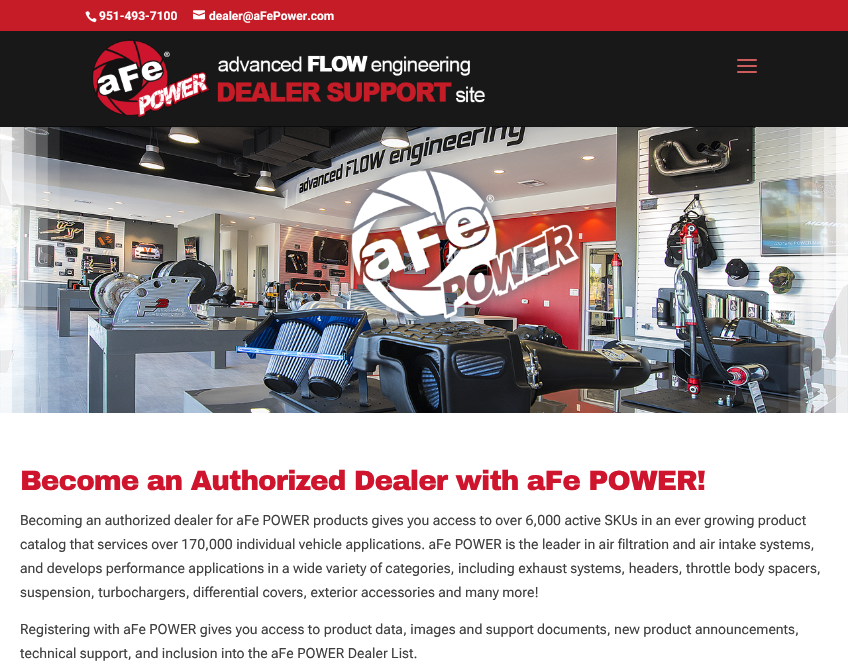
void draw(SkCanvas* canvas) {
    SkPaint paint;
    paint.setAntiAlias(true);
    auto face = [&](const char* family, int weight, float size, bool italic = false) {
        SkFontStyle style(weight, SkFontStyle::kNormal_Width,
            italic ? SkFontStyle::kItalic_Slant : SkFontStyle::kUpright_Slant);
        SkFont result(fontMgr->matchFamilyStyle(family, style), size);
        result.setSubpixel(true);
        return result;
    };
    auto write = [&](const char* s, float x, float y, const SkFont& font, SkColor color) {
        SkPaint ink(SkColor4f::FromColor(color));
        ink.setAntiAlias(true);
        canvas->drawString(s, x, y, font, ink);
    };
    auto writeSpaced = [&](const char* s, float x, float y, const SkFont& font, const SkPaint& ink, float letter, float word) {
        std::vector<SkGlyphID> glyphs(font.countText(s, strlen(s), SkTextEncoding::kUTF8));
        std::vector<float> xs(glyphs.size());
        font.textToGlyphs(s, strlen(s), SkTextEncoding::kUTF8, glyphs);
        font.getXPos(glyphs, xs, x);
        float extra = 0;
        for (size_t i = 0; i < glyphs.size(); i++) {
            xs[i] += extra;
            extra += letter + word * (glyphs[i] == font.unicharToGlyph(' '));
        }
        canvas->drawTextBlob(SkTextBlob::MakeFromPosHGlyphs(glyphs, xs, y, font), 0, 0, ink);
    };
    auto block = [&](float x, float y, float w, float h, SkColor color) {
        SkPaint ink(SkColor4f::FromColor(color));
        ink.setAntiAlias(true);
        canvas->drawRect(SkRect::MakeXYWH(x, y, w, h), ink);
    };
    auto paste = [&](const char* path, float x, float y, float w, float h) {
        auto image = SkImages::DeferredFromEncodedData(SkData::MakeFromFileName(path));
        canvas->drawImageRect(image, SkRect::MakeXYWH(x, y, w, h), SkSamplingOptions());
    };
    canvas->clear(SK_ColorWHITE);
    block(0, 0, 848, 31, SkColorSetRGB(198, 28, 39));
    paste("pic1.png", 85, 11, 12, 12);
    auto kFont1 = face("Roboto", 700, 12);
    write("951-493-7100", 99, 20, kFont1, SK_ColorWHITE);
    paste("pic2.png", 193, 10, 12, 10);
    write("dealer@aFePower.com", 209, 20, kFont1, SK_ColorWHITE);
    paste("pic5.png", 0, 126, 848, 287);
    block(0, 31, 848, 96, SkColorSetARGB(240, 10, 10, 10));
    paste("pic3.png", 91, 39, 394, 79);
    paste("pic4.png", 737, 59, 20, 14);
    auto kFont2 = face("Archivo Black", 900, 28);
    paint.setColor(SkColorSetRGB(207, 21, 45));
    writeSpaced("Become an Authorized Dealer with aFe POWER!", 20, 490, kFont2, paint, -1, 0);
    auto kFont3 = face("Roboto Flex", 400, 14);
    write("Becoming an authorized dealer for aFe POWER products gives you access to over 6,000 active SKUs in an ever growing product", 20, 525, kFont3, SkColorSetRGB(63, 63, 63));
    write("catalog that services over 170,000 individual vehicle applications. aFe POWER is the leader in air filtration and air intake systems,", 20, 549, kFont3, SkColorSetRGB(63, 63, 63));
    write("and develops performance applications in a wide variety of categories, including exhaust systems, headers, throttle body spacers,", 20, 573, kFont3, SkColorSetRGB(63, 63, 63));
    write("suspension, turbochargers, differential covers, exterior accessories and many more!", 20, 597, kFont3, SkColorSetRGB(63, 63, 63));
    write("Registering with aFe POWER gives you access to product data, images and support documents, new product announcements,", 20, 634, kFont3, SkColorSetRGB(63, 63, 63));
    write("technical support, and inclusion into the aFe POWER Dealer List.", 20, 658, kFont3, SkColorSetRGB(63, 63, 63));
}
